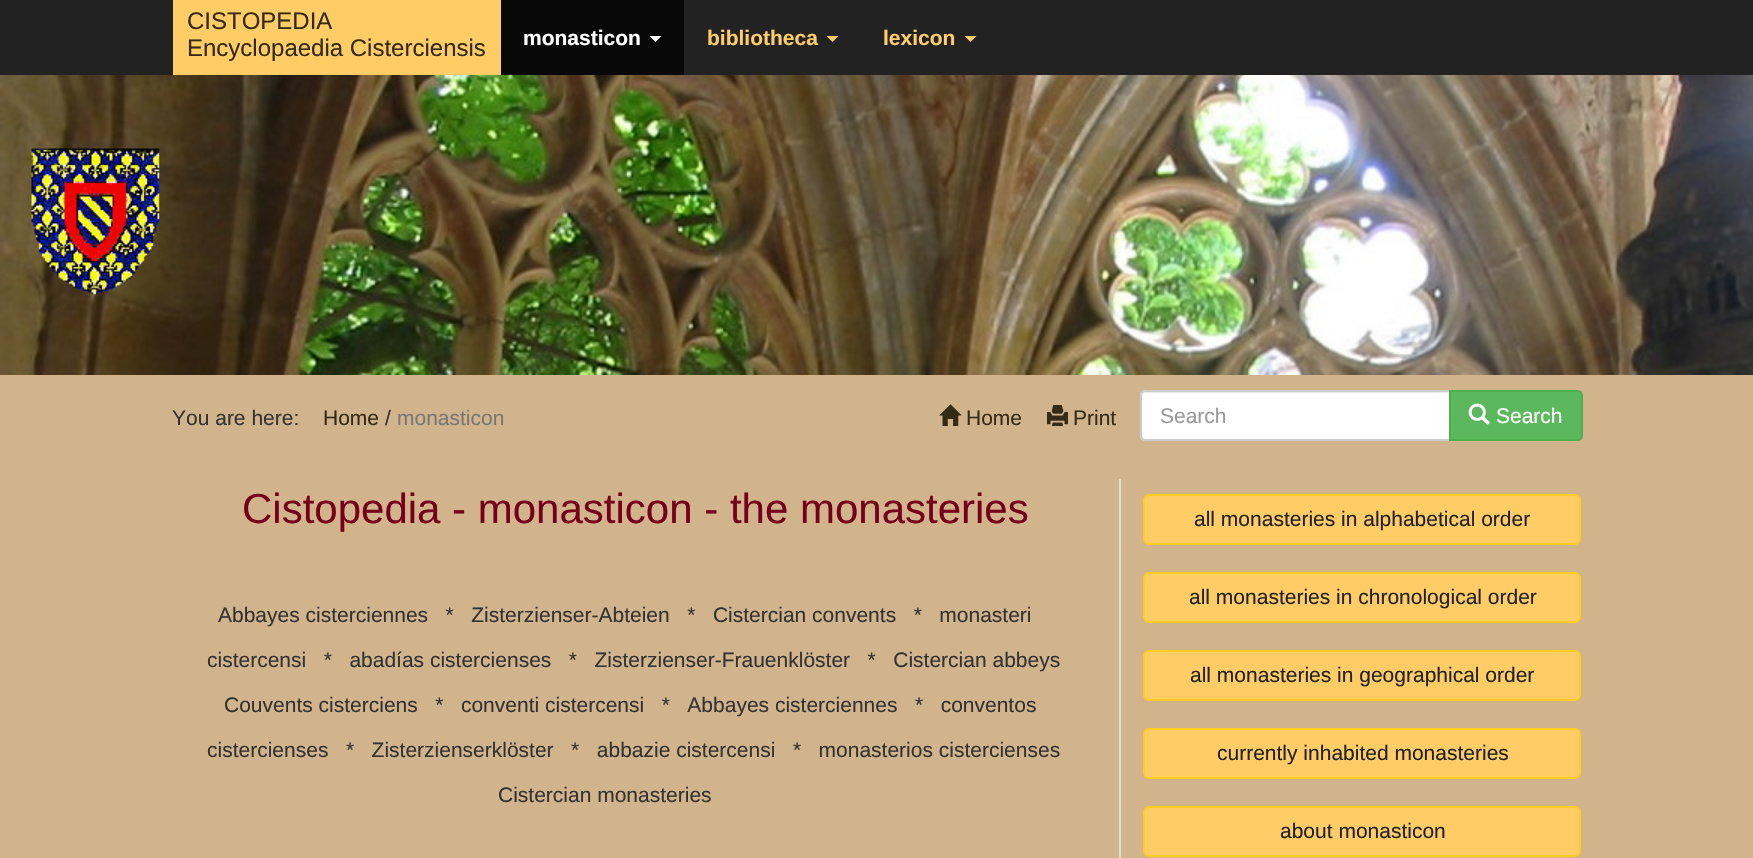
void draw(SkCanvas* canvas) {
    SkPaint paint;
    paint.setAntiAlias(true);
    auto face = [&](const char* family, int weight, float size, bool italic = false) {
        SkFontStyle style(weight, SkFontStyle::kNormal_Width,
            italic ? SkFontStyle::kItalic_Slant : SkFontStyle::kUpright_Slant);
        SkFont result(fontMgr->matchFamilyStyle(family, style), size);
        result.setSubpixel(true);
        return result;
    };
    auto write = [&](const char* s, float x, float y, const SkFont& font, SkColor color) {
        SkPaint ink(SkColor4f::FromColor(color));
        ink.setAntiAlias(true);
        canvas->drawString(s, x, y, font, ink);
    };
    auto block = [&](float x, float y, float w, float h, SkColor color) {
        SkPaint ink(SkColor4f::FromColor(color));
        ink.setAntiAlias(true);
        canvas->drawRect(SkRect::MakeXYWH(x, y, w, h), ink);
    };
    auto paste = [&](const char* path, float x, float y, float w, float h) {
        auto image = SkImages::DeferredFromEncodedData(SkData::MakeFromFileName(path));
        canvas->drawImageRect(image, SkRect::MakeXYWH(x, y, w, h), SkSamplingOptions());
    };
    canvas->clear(SkColorSetRGB(210, 180, 140));
    block(0, 0, 1753, 75, SkColorSetRGB(34, 34, 34));
    block(173, 0, 328, 75, SkColorSetRGB(255, 204, 102));
    auto kFont1 = face("Liberation Sans", 400, 24);
    write("CISTOPEDIA", 187, 29, kFont1, SkColorSetRGB(51, 43, 22));
    write("Encyclopaedia Cisterciensis", 187, 56, kFont1, SkColorSetRGB(51, 43, 22));
    block(501, 0, 183, 75, SkColorSetRGB(8, 8, 8));
    auto kFont2 = face("Liberation Sans", 700, 21);
    write("monasticon", 523, 45, kFont2, SK_ColorWHITE);
    paint.setColor(SK_ColorWHITE);
    canvas->drawPath(SkPathBuilder().moveTo(649.5f, 36).lineTo(661.5f, 36).lineTo(655.5f, 42).close().detach(), paint);
    write("bibliotheca", 707, 45, kFont2, SkColorSetRGB(255, 204, 102));
    paint.setColor(SkColorSetRGB(255, 204, 102));
    canvas->drawPath(SkPathBuilder().moveTo(826.5f, 36).lineTo(838.5f, 36).lineTo(832.5f, 42).close().detach(), paint);
    write("lexicon", 883, 45, kFont2, SkColorSetRGB(255, 204, 102));
    canvas->drawPath(SkPathBuilder().moveTo(964.5f, 36).lineTo(976.5f, 36).lineTo(970.5f, 42).close().detach(), paint);
    paste("pic1.png", 0, 75, 1753, 300);
    paste("pic2.png", 31, 148, 129, 147);
    auto kFont3 = face("Liberation Sans", 400, 21);
    write("You are here:", 172, 425, kFont3, SkColorSetRGB(51, 51, 51));
    write("Home", 323, 425, kFont3, SkColorSetRGB(51, 43, 22));
    write("/", 385, 425, kFont3, SkColorSetRGB(51, 51, 51));
    write("monasticon", 397, 425, kFont3, SkColorSetRGB(119, 119, 119));
    paste("pic3.png", 939, 404, 23, 22);
    write("Home", 966, 425, kFont3, SkColorSetRGB(51, 43, 22));
    paste("pic4.png", 1047, 405, 21, 21);
    write("Print", 1073, 425, kFont3, SkColorSetRGB(51, 43, 22));
    paint.setColor(SK_ColorWHITE);
    canvas->drawPath(SkPathBuilder().moveTo(1146, 390).lineTo(1451, 390).lineTo(1451, 441).lineTo(1146, 441).cubicTo(1142.5f, 441, 1140, 438.5f, 1140, 435).lineTo(1140, 396).cubicTo(1140, 392.5f, 1142.5f, 390, 1146, 390).close().detach(), paint);
    paint.setColor(SkColorSetRGB(236, 236, 236));
    canvas->drawPath(SkPathBuilder().moveTo(1146, 393).lineTo(1449, 393).lineTo(1449, 392).lineTo(1147, 392).cubicTo(1144, 392, 1142, 395, 1142, 398).cubicTo(1142, 395, 1144, 393, 1146, 393).close().detach(), paint);
    paint.setStyle(SkPaint::kStroke_Style);
    paint.setStrokeWidth(2);
    paint.setColor(SkColorSetRGB(204, 204, 204));
    canvas->drawPath(SkPathBuilder().moveTo(1146, 391).lineTo(1450, 391).lineTo(1450, 440).lineTo(1146, 440).cubicTo(1143, 440, 1141, 438, 1141, 435).lineTo(1141, 396).cubicTo(1141, 393, 1143, 391, 1146, 391).close().detach(), paint);
    write("Search", 1160, 423, kFont3, SkColorSetRGB(153, 153, 153));
    paint.setStyle(SkPaint::kFill_Style);
    paint.setColor(SkColorSetRGB(92, 184, 92));
    canvas->drawPath(SkPathBuilder().moveTo(1450, 391).lineTo(1577, 391).cubicTo(1580, 391, 1582, 393, 1582, 396).lineTo(1582, 435).cubicTo(1582, 438, 1580, 440, 1577, 440).lineTo(1450, 440).close().detach(), paint);
    paint.setStyle(SkPaint::kStroke_Style);
    paint.setColor(SkColorSetRGB(76, 174, 76));
    canvas->drawPath(SkPathBuilder().moveTo(1450, 391).lineTo(1577, 391).cubicTo(1580, 391, 1582, 393, 1582, 396).lineTo(1582, 435).cubicTo(1582, 438, 1580, 440, 1577, 440).lineTo(1450, 440).close().detach(), paint);
    paste("pic5.png", 1468, 403, 22, 22);
    write("Search", 1496, 423, kFont3, SK_ColorWHITE);
    auto kFont4 = face("Liberation Sans", 400, 42);
    write("Cistopedia - monasticon - the monasteries", 242, 523, kFont4, SkColorSetRGB(118, 0, 27));
    write("Abbayes cisterciennes   *   Zisterzienser-Abteien   *   Cistercian convents   *   monasteri", 218, 622, kFont3, SkColorSetRGB(51, 51, 51));
    write("cistercensi   *   abadías cistercienses   *   Zisterzienser-Frauenklöster   *   Cistercian abbeys", 207, 667, kFont3, SkColorSetRGB(51, 51, 51));
    write("Couvents cisterciens   *   conventi cistercensi   *   Abbayes cisterciennes   *   conventos", 224, 712, kFont3, SkColorSetRGB(51, 51, 51));
    write("cistercienses   *   Zisterzienserklöster   *   abbazie cistercensi   *   monasterios cistercienses", 207, 757, kFont3, SkColorSetRGB(51, 51, 51));
    write("Cistercian monasteries", 498, 802, kFont3, SkColorSetRGB(51, 51, 51));
    block(1119, 479, 2, 379, SkColorSetRGB(221, 221, 221));
    paint.setStyle(SkPaint::kFill_Style);
    paint.setColor(SkColorSetRGB(255, 204, 102));
    canvas->drawRoundRect(SkRect::MakeXYWH(1144, 495, 436, 49), 5, 5, paint);
    paint.setStyle(SkPaint::kStroke_Style);
    paint.setColor(SkColorSetRGB(255, 204, 34));
    canvas->drawRoundRect(SkRect::MakeXYWH(1144, 495, 436, 49), 5, 5, paint);
    write("all monasteries in alphabetical order", 1194, 526, kFont3, SkColorSetRGB(34, 34, 34));
    paint.setStyle(SkPaint::kFill_Style);
    paint.setColor(SkColorSetRGB(255, 204, 102));
    canvas->drawRoundRect(SkRect::MakeXYWH(1144, 573, 436, 49), 5, 5, paint);
    paint.setStyle(SkPaint::kStroke_Style);
    paint.setColor(SkColorSetRGB(255, 204, 34));
    canvas->drawRoundRect(SkRect::MakeXYWH(1144, 573, 436, 49), 5, 5, paint);
    write("all monasteries in chronological order", 1189, 604, kFont3, SkColorSetRGB(34, 34, 34));
    paint.setStyle(SkPaint::kFill_Style);
    paint.setColor(SkColorSetRGB(255, 204, 102));
    canvas->drawRoundRect(SkRect::MakeXYWH(1144, 651, 436, 49), 5, 5, paint);
    paint.setStyle(SkPaint::kStroke_Style);
    paint.setColor(SkColorSetRGB(255, 204, 34));
    canvas->drawRoundRect(SkRect::MakeXYWH(1144, 651, 436, 49), 5, 5, paint);
    write("all monasteries in geographical order", 1190, 682, kFont3, SkColorSetRGB(34, 34, 34));
    paint.setStyle(SkPaint::kFill_Style);
    paint.setColor(SkColorSetRGB(255, 204, 102));
    canvas->drawRoundRect(SkRect::MakeXYWH(1144, 729, 436, 49), 5, 5, paint);
    paint.setStyle(SkPaint::kStroke_Style);
    paint.setColor(SkColorSetRGB(255, 204, 34));
    canvas->drawRoundRect(SkRect::MakeXYWH(1144, 729, 436, 49), 5, 5, paint);
    write("currently inhabited monasteries", 1217, 760, kFont3, SkColorSetRGB(34, 34, 34));
    paint.setStyle(SkPaint::kFill_Style);
    paint.setColor(SkColorSetRGB(255, 204, 102));
    canvas->drawRoundRect(SkRect::MakeXYWH(1144, 807, 436, 49), 5, 5, paint);
    paint.setStyle(SkPaint::kStroke_Style);
    paint.setColor(SkColorSetRGB(255, 204, 34));
    canvas->drawRoundRect(SkRect::MakeXYWH(1144, 807, 436, 49), 5, 5, paint);
    write("about monasticon", 1280, 838, kFont3, SkColorSetRGB(34, 34, 34));
}
